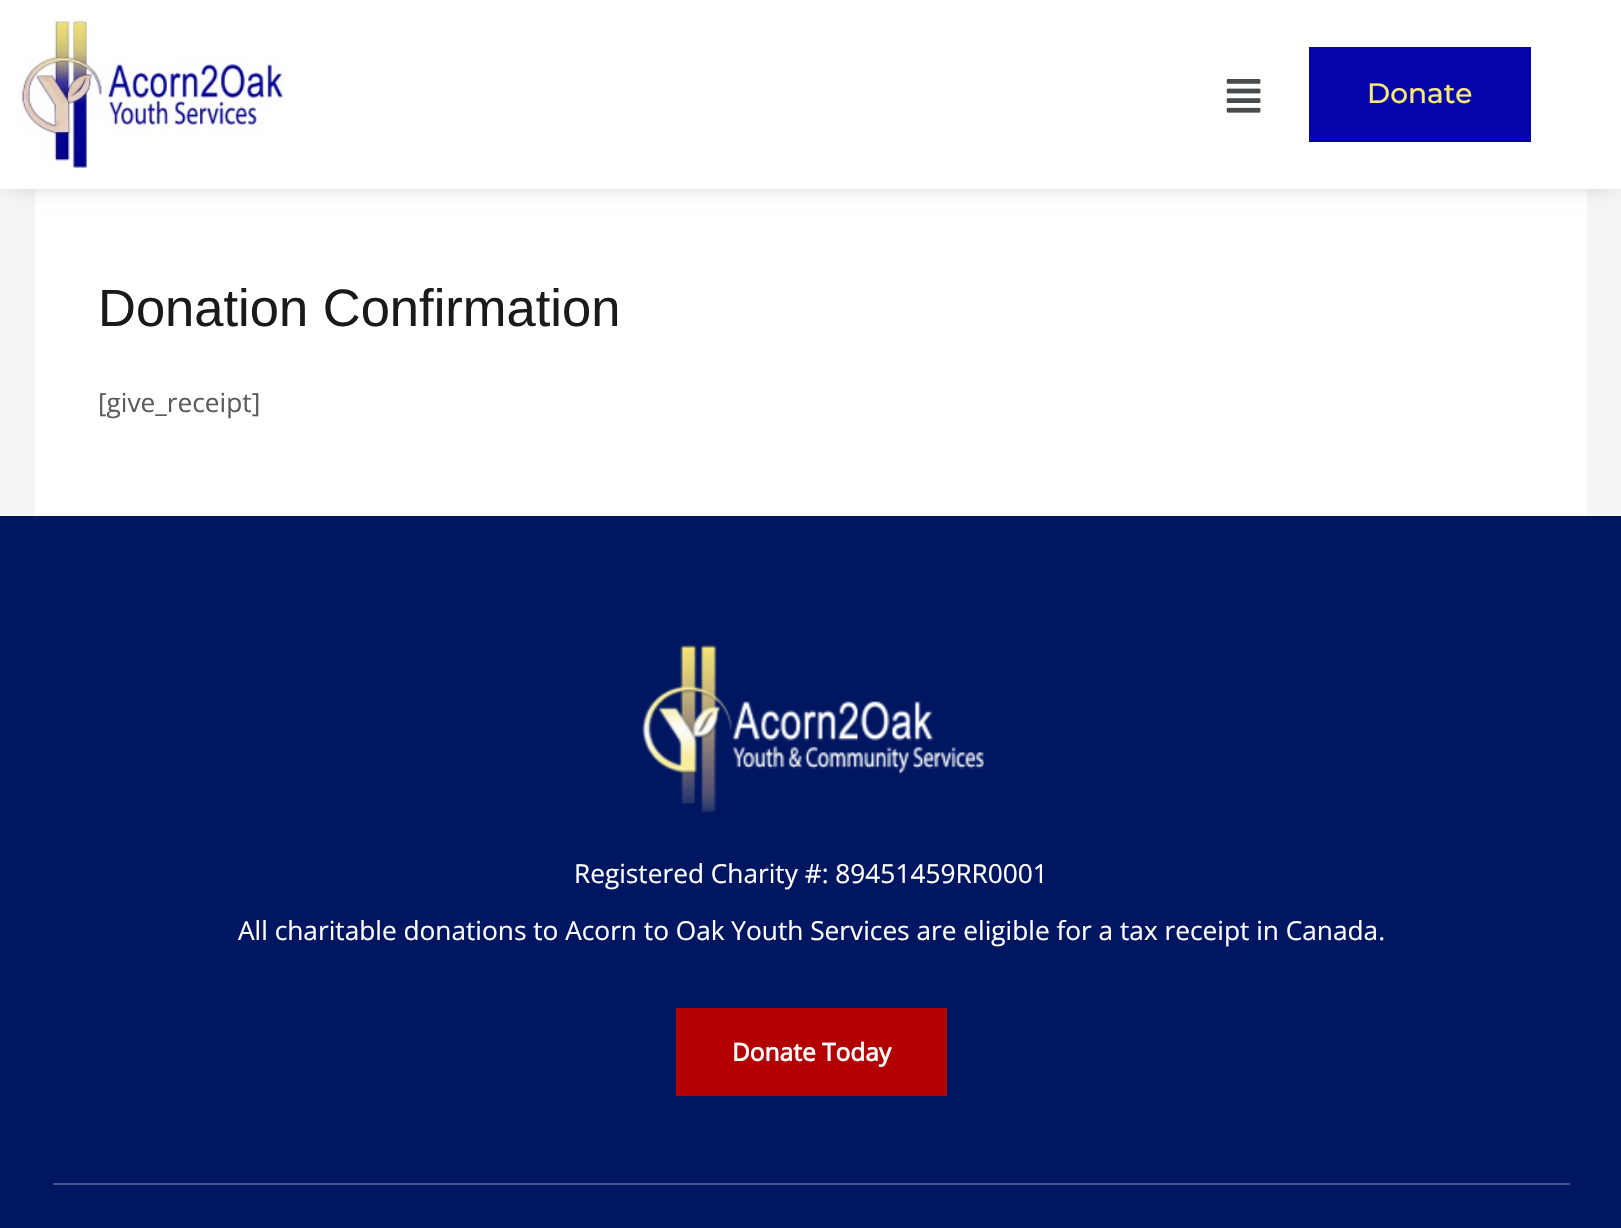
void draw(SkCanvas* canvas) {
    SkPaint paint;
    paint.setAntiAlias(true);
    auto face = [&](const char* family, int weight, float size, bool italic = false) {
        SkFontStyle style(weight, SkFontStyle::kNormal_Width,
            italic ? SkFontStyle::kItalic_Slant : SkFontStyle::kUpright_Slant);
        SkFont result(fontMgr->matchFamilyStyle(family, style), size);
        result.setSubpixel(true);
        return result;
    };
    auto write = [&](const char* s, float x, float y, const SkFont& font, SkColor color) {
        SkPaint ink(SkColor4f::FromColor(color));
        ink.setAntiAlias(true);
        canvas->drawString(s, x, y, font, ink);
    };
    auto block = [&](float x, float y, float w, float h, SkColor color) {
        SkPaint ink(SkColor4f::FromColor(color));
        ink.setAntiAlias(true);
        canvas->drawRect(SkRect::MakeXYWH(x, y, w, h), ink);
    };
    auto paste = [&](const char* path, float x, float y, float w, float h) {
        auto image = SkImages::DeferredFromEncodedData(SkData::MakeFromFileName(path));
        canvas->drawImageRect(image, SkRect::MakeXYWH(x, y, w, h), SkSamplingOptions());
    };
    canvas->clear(SkColorSetRGB(245, 245, 245));
    block(35, 189, 1552, 327, SK_ColorWHITE);
    paint.setColor(SkColorSetARGB(128, 0, 0, 0));
    paint.setMaskFilter(SkMaskFilter::MakeBlur(kNormal_SkBlurStyle, 12));
    canvas->drawRect(SkRect::MakeXYWH(12, 12, 1598, 165), paint);
    paint.setMaskFilter(nullptr);
    block(0, 0, 1621, 189, SK_ColorWHITE);
    paste("pic1.png", 17, 18, 268, 152);
    paste("pic2.png", 1226, 79, 35, 34);
    block(1309, 47, 222, 95, SkColorSetRGB(5, 4, 170));
    auto kFont1 = face("Montserrat", 500, 28);
    write("Donate", 1367, 103, kFont1, SkColorSetRGB(249, 234, 117));
    auto kFont2 = face("Liberation Sans", 400, 52.5f);
    write("Donation Confirmation", 98, 326, kFont2, SkColorSetRGB(26, 26, 26));
    auto kFont3 = face("Open Sans", 400, 26.25f);
    write("[give_receipt]", 98, 412, kFont3, SkColorSetRGB(90, 90, 90));
    block(0, 516, 1621, 712, SkColorSetRGB(0, 22, 97));
    paste("pic3.png", 642, 645, 342, 168);
    write("Registered Charity #: 89451459RR0001", 574, 883, kFont3, SK_ColorWHITE);
    write("All charitable donations to Acorn to Oak Youth Services are eligible for a tax receipt in Canada.", 238, 940, kFont3, SK_ColorWHITE);
    block(676, 1008, 271, 88, SkColorSetRGB(178, 0, 0));
    auto kFont4 = face("Open Sans", 700, 24.5f);
    write("Donate Today", 732, 1061, kFont4, SK_ColorWHITE);
    block(53, 1183, 1517, 2, SkColorSetRGB(69, 85, 140));
}
